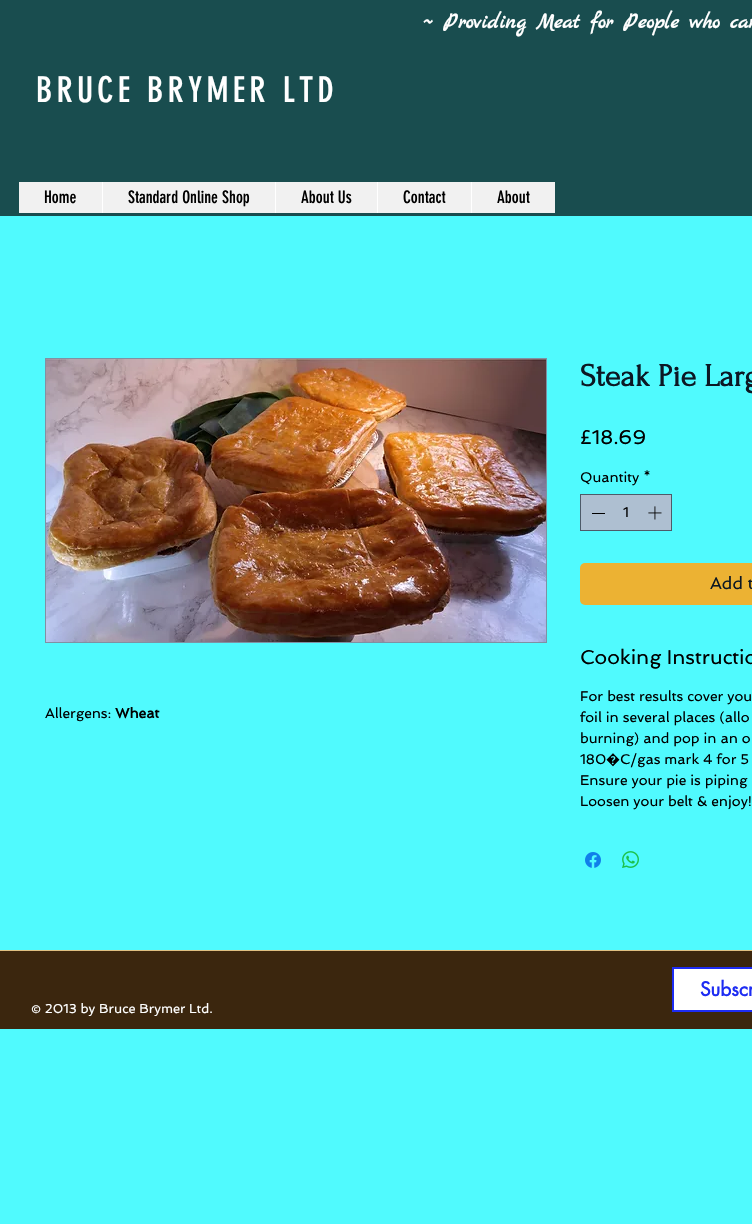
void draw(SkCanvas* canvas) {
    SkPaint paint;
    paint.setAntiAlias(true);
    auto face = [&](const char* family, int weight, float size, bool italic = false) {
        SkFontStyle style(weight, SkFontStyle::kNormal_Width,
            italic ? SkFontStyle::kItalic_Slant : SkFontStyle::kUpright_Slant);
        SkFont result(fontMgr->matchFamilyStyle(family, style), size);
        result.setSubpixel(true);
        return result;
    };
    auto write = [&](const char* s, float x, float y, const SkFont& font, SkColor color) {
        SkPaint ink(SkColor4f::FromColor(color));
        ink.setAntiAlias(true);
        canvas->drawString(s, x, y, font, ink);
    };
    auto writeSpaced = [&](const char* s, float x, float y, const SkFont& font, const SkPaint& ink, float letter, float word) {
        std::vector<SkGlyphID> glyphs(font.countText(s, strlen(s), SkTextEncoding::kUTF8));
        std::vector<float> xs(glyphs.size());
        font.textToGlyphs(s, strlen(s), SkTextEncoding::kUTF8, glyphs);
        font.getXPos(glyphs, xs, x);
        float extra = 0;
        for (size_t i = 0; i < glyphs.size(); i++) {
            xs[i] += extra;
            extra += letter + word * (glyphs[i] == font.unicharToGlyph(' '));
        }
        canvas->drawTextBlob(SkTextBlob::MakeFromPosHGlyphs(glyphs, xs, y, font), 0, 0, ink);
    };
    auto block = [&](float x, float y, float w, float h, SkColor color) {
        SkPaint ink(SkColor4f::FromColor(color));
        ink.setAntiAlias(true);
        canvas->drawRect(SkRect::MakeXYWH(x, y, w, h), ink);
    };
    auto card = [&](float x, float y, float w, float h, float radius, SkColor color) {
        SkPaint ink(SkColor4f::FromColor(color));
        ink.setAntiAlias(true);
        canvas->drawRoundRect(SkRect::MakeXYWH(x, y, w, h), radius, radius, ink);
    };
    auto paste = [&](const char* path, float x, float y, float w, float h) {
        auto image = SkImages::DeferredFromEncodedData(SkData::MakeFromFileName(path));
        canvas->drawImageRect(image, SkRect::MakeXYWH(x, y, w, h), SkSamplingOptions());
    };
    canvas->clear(SkColorSetRGB(80, 250, 254));
    block(0, 0, 752, 216, SkColorSetRGB(25, 77, 79));
    auto kFont1 = face("Marck Script", 700, 22);
    write("~ Providing Meat for People who car", 423, 28, kFont1, SK_ColorWHITE);
    auto kFont2 = face("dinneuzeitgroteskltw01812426", 400, 35);
    paint.setColor(SK_ColorWHITE);
    writeSpaced("BRUCE BRYMER LTD", 36, 102, kFont2, paint, 4.25f, 0);
    block(19, 182, 536, 31, SkColorSetRGB(241, 241, 241));
    auto kFont3 = face("dinneuzeitgroteskltw01812426", 400, 17);
    write("Home", 44, 203, kFont3, SK_ColorBLACK);
    block(102, 182, 1, 31, SK_ColorWHITE);
    write("Standard Online Shop", 128, 203, kFont3, SK_ColorBLACK);
    block(275, 182, 1, 31, SK_ColorWHITE);
    write("About Us", 301, 203, kFont3, SK_ColorBLACK);
    block(377, 182, 1, 31, SK_ColorWHITE);
    write("Contact", 403, 203, kFont3, SK_ColorBLACK);
    block(471, 182, 1, 31, SK_ColorWHITE);
    write("About", 497, 203, kFont3, SK_ColorBLACK);
    paint.setStyle(SkPaint::kStroke_Style);
    paint.setStrokeWidth(1);
    paint.setColor(SkColorSetRGB(127, 145, 163));
    canvas->drawRect(SkRect::MakeXYWH(45.5f, 358.5f, 501, 284), paint);
    paste("pic1.png", 46, 359, 500, 283);
    auto kFont4 = face("Spinnaker", 400, 14);
    write("Allergens:", 45, 718, kFont4, SK_ColorBLACK);
    auto kFont5 = face("Spinnaker", 700, 14);
    write("Wheat", 115, 718, kFont5, SK_ColorBLACK);
    auto kFont6 = face("Forum", 700, 32);
    write("Steak Pie Larg", 580, 386, kFont6, SkColorSetRGB(12, 23, 35));
    auto kFont7 = face("Spinnaker", 400, 20);
    write("£18.69", 580, 444, kFont7, SK_ColorBLACK);
    write("Quantity *", 580, 482, kFont4, SK_ColorBLACK);
    paint.setStyle(SkPaint::kFill_Style);
    paint.setColor(SkColorSetRGB(174, 191, 209));
    canvas->drawRect(SkRect::MakeXYWH(580.5f, 494.5f, 91, 36), paint);
    paint.setStyle(SkPaint::kStroke_Style);
    paint.setColor(SkColorSetRGB(77, 90, 105));
    canvas->drawRect(SkRect::MakeXYWH(580.5f, 494.5f, 91, 36), paint);
    block(592, 513, 13, 1, SK_ColorBLACK);
    write("1", 623, 517, kFont4, SK_ColorBLACK);
    paste("pic2.png", 648, 506, 14, 14);
    card(580, 563, 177, 42, 5, SkColorSetRGB(236, 178, 51));
    auto kFont8 = face("Spinnaker", 400, 17);
    write("Add t", 710, 589, kFont8, SkColorSetRGB(12, 23, 35));
    write("Cooking Instructio", 580, 664, kFont7, SK_ColorBLACK);
    write("For best results cover you", 580, 701, kFont4, SK_ColorBLACK);
    write("foil in several places (allo", 580, 722, kFont4, SK_ColorBLACK);
    write("burning) and pop in an o", 580, 743, kFont4, SK_ColorBLACK);
    write("180", 580, 764, kFont4, SK_ColorBLACK);
    auto kFont9 = face("Noto Sans", 400, 14);
    write("�", 606, 764, kFont9, SK_ColorBLACK);
    write("C/gas mark 4 for 5", 620, 764, kFont4, SK_ColorBLACK);
    write("Ensure your pie is piping", 580, 785, kFont4, SK_ColorBLACK);
    write("Loosen your belt & enjoy!", 580, 806, kFont4, SK_ColorBLACK);
    paste("pic3.png", 585, 852, 16, 16);
    paste("pic4.png", 622, 851, 17, 17);
    block(0, 950, 752, 1, SkColorSetRGB(224, 192, 130));
    block(0, 951, 752, 78, SkColorSetRGB(59, 38, 14));
    paint.setStyle(SkPaint::kFill_Style);
    paint.setColor(SK_ColorWHITE);
    canvas->drawRect(SkRect::MakeXYWH(673, 968, 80, 43), paint);
    paint.setStyle(SkPaint::kStroke_Style);
    paint.setStrokeWidth(2);
    paint.setColor(SkColorSetRGB(29, 44, 243));
    canvas->drawRect(SkRect::MakeXYWH(673, 968, 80, 43), paint);
    auto kFont10 = face("futura", 700, 19);
    write("Subscr", 700, 996, kFont10, SkColorSetRGB(29, 44, 243));
    auto kFont11 = face("Spinnaker", 400, 13);
    write("© 2013 by Bruce Brymer Ltd.", 31, 1013, kFont11, SK_ColorWHITE);
}
